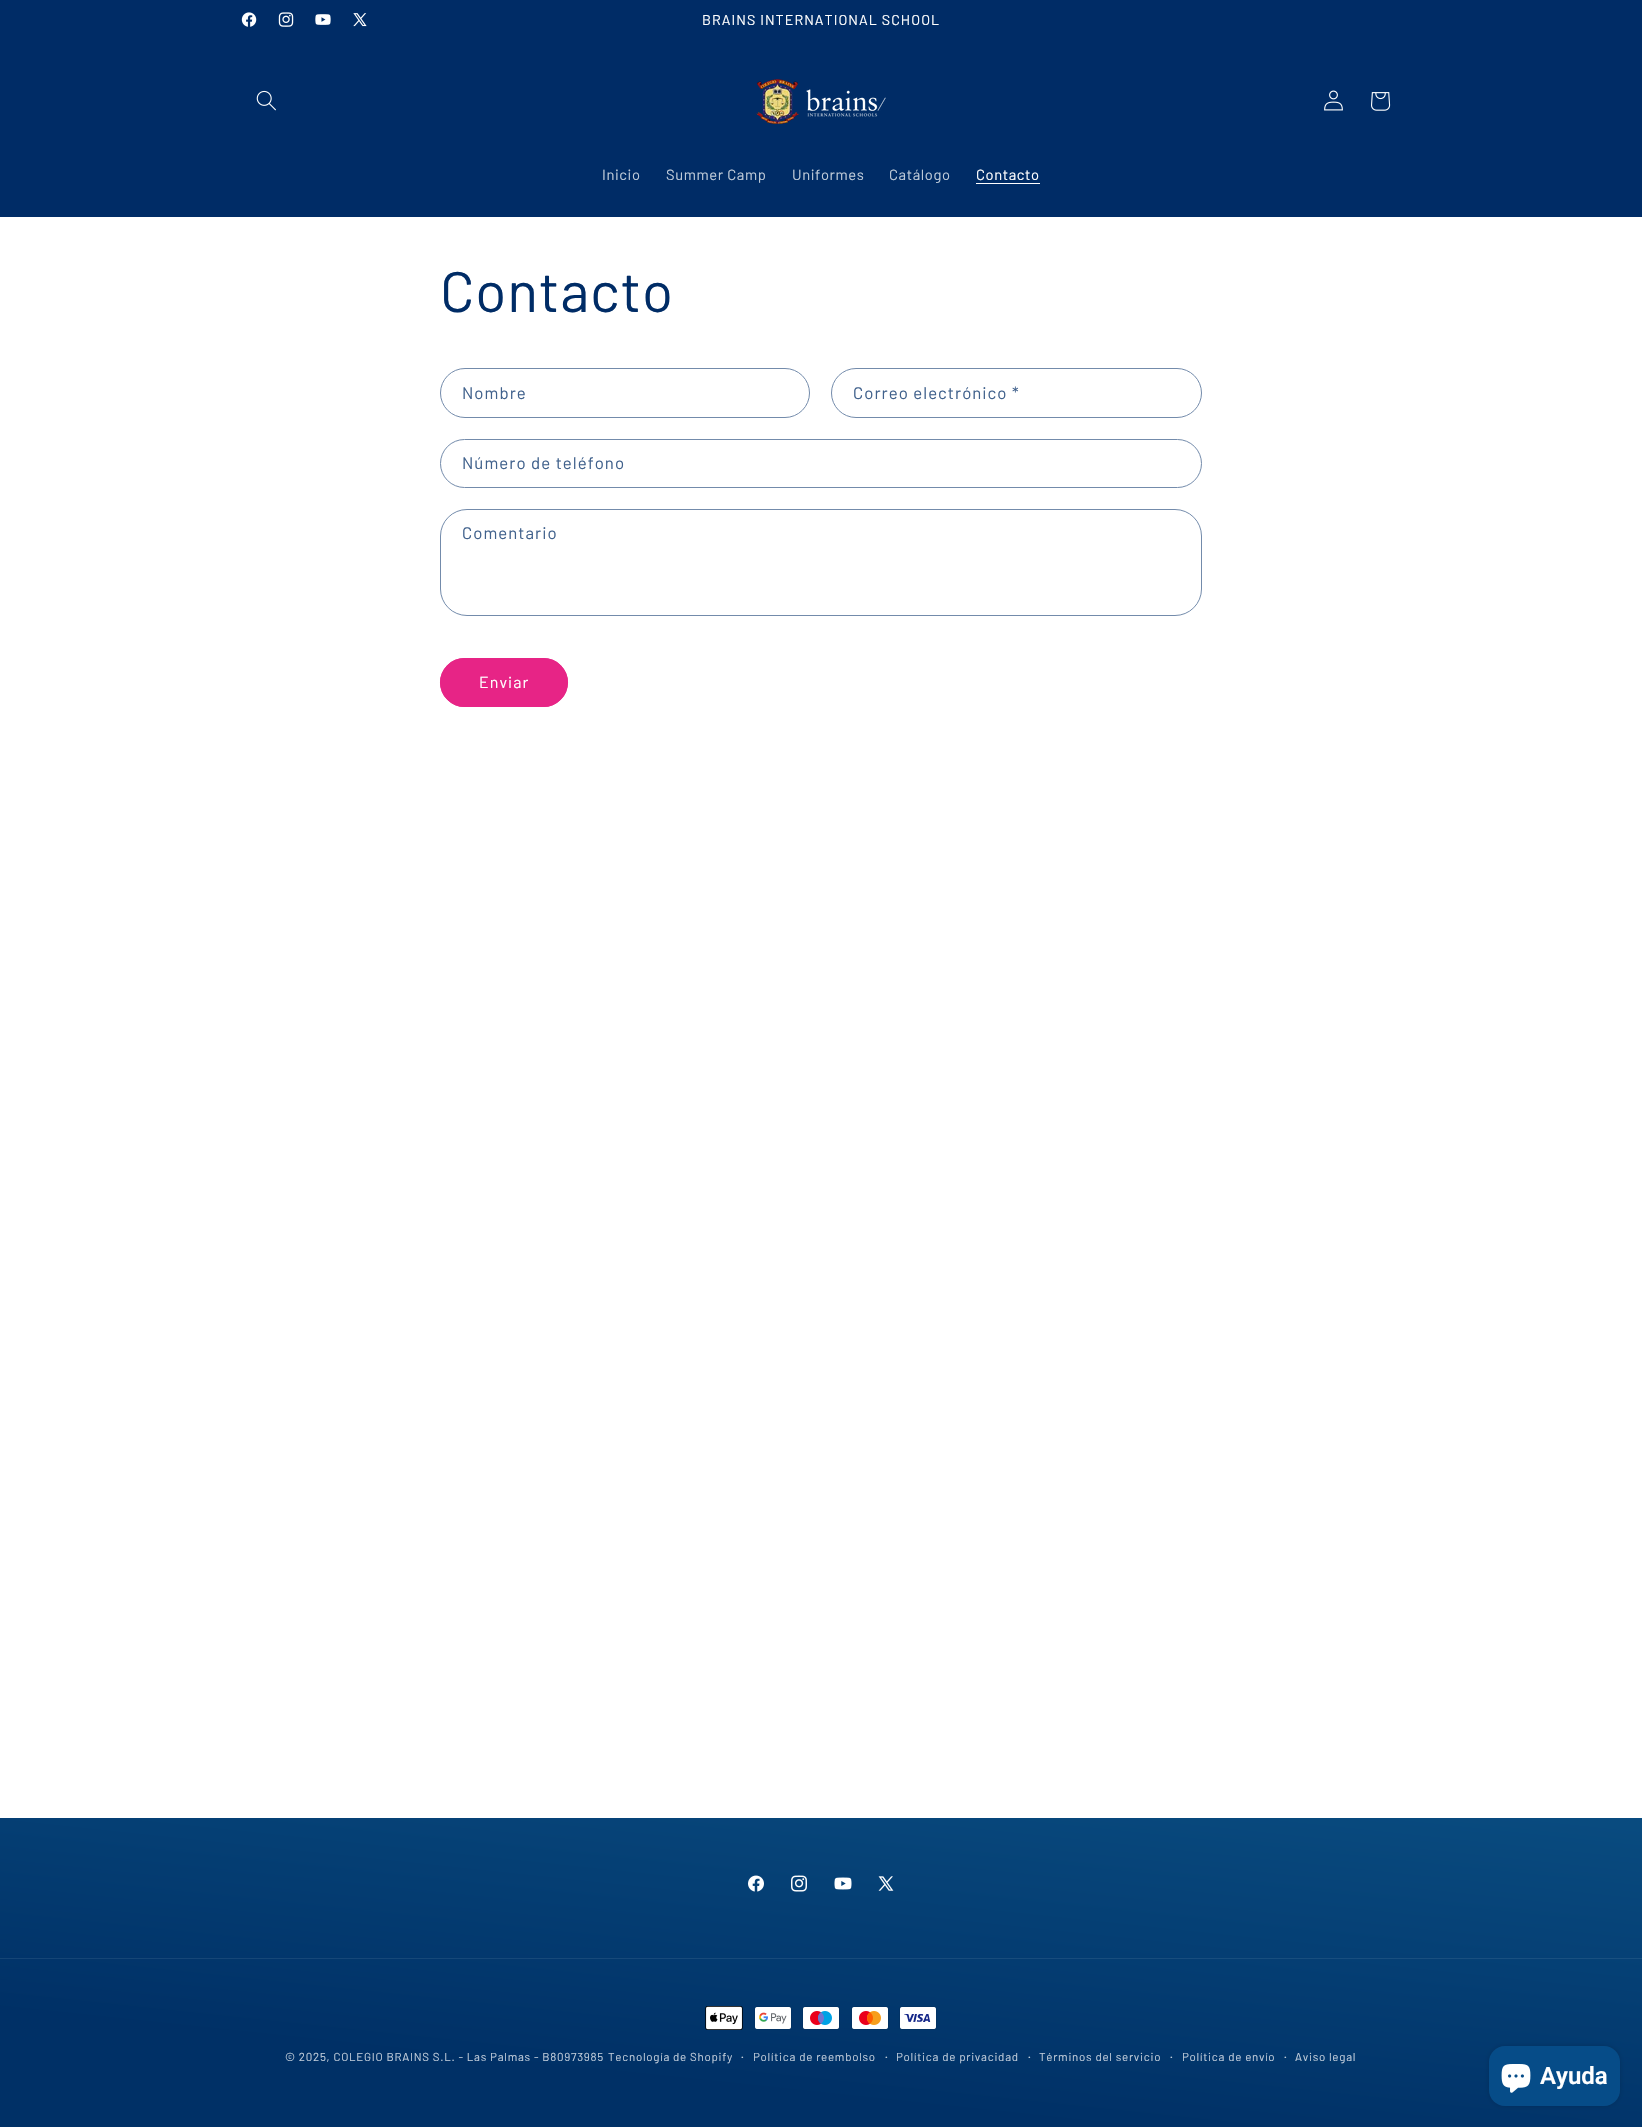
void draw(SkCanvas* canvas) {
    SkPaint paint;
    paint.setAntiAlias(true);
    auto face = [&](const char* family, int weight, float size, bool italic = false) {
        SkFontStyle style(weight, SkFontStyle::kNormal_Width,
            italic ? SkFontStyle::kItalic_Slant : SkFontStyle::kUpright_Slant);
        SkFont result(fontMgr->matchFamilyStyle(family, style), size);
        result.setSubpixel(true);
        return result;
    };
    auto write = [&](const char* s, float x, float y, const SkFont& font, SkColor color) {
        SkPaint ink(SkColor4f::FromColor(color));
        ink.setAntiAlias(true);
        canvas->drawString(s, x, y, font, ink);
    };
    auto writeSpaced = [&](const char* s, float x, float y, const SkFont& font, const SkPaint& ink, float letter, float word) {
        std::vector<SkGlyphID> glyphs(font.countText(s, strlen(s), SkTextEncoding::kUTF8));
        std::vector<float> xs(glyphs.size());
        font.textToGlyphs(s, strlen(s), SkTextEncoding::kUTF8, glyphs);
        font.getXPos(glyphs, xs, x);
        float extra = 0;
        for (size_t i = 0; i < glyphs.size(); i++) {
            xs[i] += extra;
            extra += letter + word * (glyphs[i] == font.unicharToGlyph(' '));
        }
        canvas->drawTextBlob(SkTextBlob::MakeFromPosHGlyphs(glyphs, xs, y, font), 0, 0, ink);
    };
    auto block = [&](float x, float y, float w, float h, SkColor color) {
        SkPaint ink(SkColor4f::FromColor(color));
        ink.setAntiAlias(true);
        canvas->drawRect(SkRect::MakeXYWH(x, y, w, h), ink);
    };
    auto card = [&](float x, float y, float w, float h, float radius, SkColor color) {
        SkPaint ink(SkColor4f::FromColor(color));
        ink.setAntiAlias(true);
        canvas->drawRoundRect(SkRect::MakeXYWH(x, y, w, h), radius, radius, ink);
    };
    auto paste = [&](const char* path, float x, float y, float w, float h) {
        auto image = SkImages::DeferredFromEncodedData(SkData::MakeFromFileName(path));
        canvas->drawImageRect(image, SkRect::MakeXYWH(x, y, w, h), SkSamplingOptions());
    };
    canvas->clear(SK_ColorWHITE);
    {
        const SkColor colors[] = {SkColorSetRGB(0, 44, 102), SkColorSetRGB(0, 141, 210)};
        const float stops[] = {0.27f, 0.83f};
        const SkPoint ends[] = {{879, -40}, {763, 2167}};
        paint.setShader(SkGradientShader::MakeLinear(ends, colors, stops, 2, SkTileMode::kClamp));
        paint.setAlpha(255);
    }
    canvas->drawRect(SkRect::MakeXYWH(0, 0, 1642, 40), paint);
    paste("pic1.png", 241, 12, 16, 15);
    paste("pic2.png", 278, 12, 16, 15);
    paste("pic3.png", 315, 14, 16, 11);
    paste("pic4.png", 353, 13, 14, 14);
    auto kFont1 = face("Barlow", 400, 14.25f);
    paint.setShader(nullptr);
    paint.setColor(SK_ColorWHITE);
    writeSpaced("BRAINS INTERNATIONAL SCHOOL", 702, 25, kFont1, paint, 1.05f, 0);
    {
        const SkColor colors[] = {SkColorSetRGB(0, 44, 102), SkColorSetRGB(0, 141, 210)};
        const float stops[] = {0.27f, 0.83f};
        const SkPoint ends[] = {{879, -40}, {763, 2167}};
        paint.setShader(SkGradientShader::MakeLinear(ends, colors, stops, 2, SkTileMode::kClamp));
        paint.setAlpha(255);
    }
    canvas->drawRect(SkRect::MakeXYWH(0, 40, 1642, 177), paint);
    paste("pic5.png", 256, 90, 20, 21);
    paste("pic6.png", 756, 79, 130, 45);
    paste("pic7.png", 1324, 90, 19, 21);
    paste("pic8.png", 1371, 92, 20, 19);
    auto kFont2 = face("Barlow", 400, 14.75f);
    paint.setShader(nullptr);
    paint.setColor(SkColorSetRGB(191, 203, 217));
    writeSpaced("Inicio", 602, 180, kFont2, paint, 0.6f, 0);
    writeSpaced("Summer Camp", 666, 180, kFont2, paint, 0.6f, 0);
    writeSpaced("Uniformes", 792, 180, kFont2, paint, 0.6f, 0);
    writeSpaced("Catálogo", 889, 180, kFont2, paint, 0.6f, 0);
    paint.setColor(SK_ColorWHITE);
    writeSpaced("Contacto", 976, 180, kFont2, paint, 0.6f, 0);
    block(976, 183, 64, 1, SK_ColorWHITE);
    auto kFont3 = face("Barlow", 400, 57);
    paint.setColor(SkColorSetRGB(0, 44, 102));
    writeSpaced("Contacto", 440, 312, kFont3, paint, 0.75f, 0);
    paint.setStyle(SkPaint::kStroke_Style);
    paint.setStrokeWidth(1);
    paint.setColor(SkColorSetRGB(115, 139, 171));
    canvas->drawRoundRect(SkRect::MakeXYWH(440.5f, 368.5f, 369, 49), 24.5f, 24.5f, paint);
    auto kFont4 = face("Barlow", 400, 16.75f);
    paint.setStyle(SkPaint::kFill_Style);
    paint.setColor(SkColorSetRGB(64, 97, 140));
    writeSpaced("Nombre", 462, 399, kFont4, paint, 1.05f, 0);
    paint.setStyle(SkPaint::kStroke_Style);
    paint.setColor(SkColorSetRGB(115, 139, 171));
    canvas->drawRoundRect(SkRect::MakeXYWH(831.5f, 368.5f, 370, 49), 24.5f, 24.5f, paint);
    paint.setStyle(SkPaint::kFill_Style);
    paint.setColor(SkColorSetRGB(64, 97, 140));
    writeSpaced("Correo electrónico *", 853, 399, kFont4, paint, 1.05f, 0);
    paint.setStyle(SkPaint::kStroke_Style);
    paint.setColor(SkColorSetRGB(115, 139, 171));
    canvas->drawRoundRect(SkRect::MakeXYWH(440.5f, 439.5f, 761, 48), 24, 24, paint);
    paint.setStyle(SkPaint::kFill_Style);
    paint.setColor(SkColorSetRGB(64, 97, 140));
    writeSpaced("Número de teléfono", 462, 469, kFont4, paint, 1.05f, 0);
    paint.setStyle(SkPaint::kStroke_Style);
    paint.setColor(SkColorSetRGB(115, 139, 171));
    canvas->drawRoundRect(SkRect::MakeXYWH(440.5f, 509.5f, 761, 106), 26.5f, 26.5f, paint);
    paint.setStyle(SkPaint::kFill_Style);
    paint.setColor(SkColorSetRGB(64, 97, 140));
    writeSpaced("Comentario", 462, 539, kFont4, paint, 1.05f, 0);
    card(440, 658, 128, 49, 24.5f, SkColorSetRGB(231, 36, 134));
    paint.setStyle(SkPaint::kStroke_Style);
    paint.setColor(SkColorSetRGB(231, 36, 134));
    canvas->drawRoundRect(SkRect::MakeXYWH(440.5f, 658.5f, 127, 48), 24, 24, paint);
    auto kFont5 = face("Barlow", 400, 16);
    paint.setStyle(SkPaint::kFill_Style);
    paint.setColor(SK_ColorWHITE);
    writeSpaced("Enviar", 479, 688, kFont5, paint, 1.05f, 0);
    {
        const SkColor colors[] = {SkColorSetRGB(0, 48, 102), SkColorSetRGB(54, 212, 255)};
        const float stops[] = {0.05f, 1};
        const SkPoint ends[] = {{701, 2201}, {941, -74}};
        paint.setShader(SkGradientShader::MakeLinear(ends, colors, stops, 2, SkTileMode::kClamp));
        paint.setAlpha(255);
    }
    canvas->drawRect(SkRect::MakeXYWH(0, 1818, 1642, 309), paint);
    {
        const SkColor colors[] = {SkColorSetRGB(20, 65, 114), SkColorSetRGB(70, 215, 255)};
        const float stops[] = {0.05f, 1};
        const SkPoint ends[] = {{701, 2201}, {941, -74}};
        paint.setShader(SkGradientShader::MakeLinear(ends, colors, stops, 2, SkTileMode::kClamp));
        paint.setAlpha(255);
    }
    canvas->drawRect(SkRect::MakeXYWH(0, 1958, 1642, 1), paint);
    paste("pic9.png", 748, 1875, 16, 17);
    paste("pic10.png", 791, 1875, 16, 17);
    paste("pic11.png", 834, 1877, 18, 13);
    paste("pic12.png", 878, 1876, 16, 15);
    paste("pic13.png", 705, 2006, 38, 24);
    paste("pic14.png", 754, 2006, 38, 24);
    paste("pic15.png", 802, 2006, 38, 24);
    paste("pic16.png", 851, 2006, 38, 24);
    paste("pic17.png", 899, 2006, 38, 24);
    auto kFont6 = face("Barlow", 400, 11.55f);
    paint.setShader(nullptr);
    paint.setColor(SkColorSetRGB(191, 203, 217));
    writeSpaced("© 2025, COLEGIO BRAINS S.L. - Las Palmas - B80973985", 285, 2061, kFont6, paint, 0.73f, 0);
    writeSpaced("Tecnología de Shopify", 608, 2061, kFont6, paint, 0.73f, 0);
    auto kFont7 = face("Barlow", 400, 13);
    writeSpaced("·", 741, 2061, kFont7, paint, 0.73f, 0);
    writeSpaced("Política de reembolso", 753, 2061, kFont6, paint, 0.73f, 0);
    writeSpaced("·", 885, 2061, kFont7, paint, 0.73f, 0);
    writeSpaced("Política de privacidad", 896, 2061, kFont6, paint, 0.73f, 0);
    writeSpaced("·", 1028, 2061, kFont7, paint, 0.73f, 0);
    writeSpaced("Términos del servicio", 1039, 2061, kFont6, paint, 0.73f, 0);
    writeSpaced("·", 1170, 2061, kFont7, paint, 0.73f, 0);
    writeSpaced("Política de envío", 1182, 2061, kFont6, paint, 0.73f, 0);
    writeSpaced("·", 1284, 2061, kFont7, paint, 0.73f, 0);
    writeSpaced("Aviso legal", 1295, 2061, kFont6, paint, 0.73f, 0);
    paint.setColor(SkColorSetARGB(38, 0, 0, 0));
    paint.setMaskFilter(SkMaskFilter::MakeBlur(kNormal_SkBlurStyle, 2.5f));
    canvas->drawRoundRect(SkRect::MakeXYWH(1489, 2046, 131, 60), 16, 16, paint);
    paint.setMaskFilter(nullptr);
    card(1489, 2046, 131, 60, 16, SkColorSetRGB(6, 76, 136));
    paste("pic18.png", 1501, 2064, 30, 29);
    auto kFont8 = face("Roboto", 600, 24);
    write("Ayuda", 1540, 2084, kFont8, SK_ColorWHITE);
}
